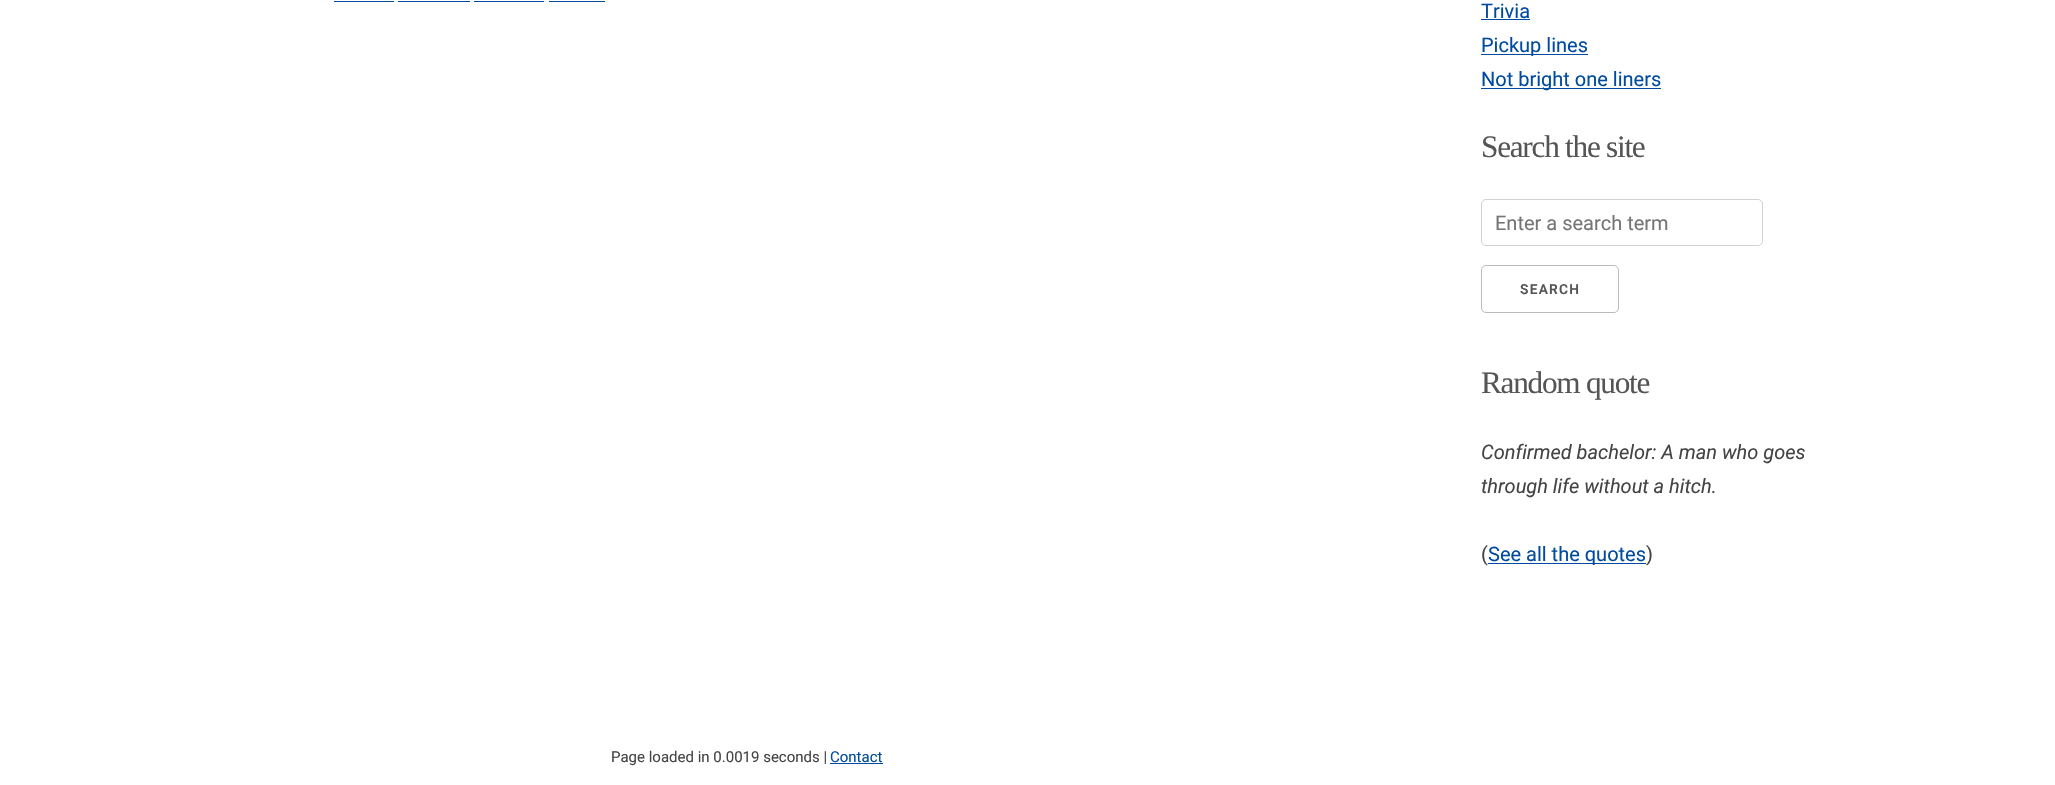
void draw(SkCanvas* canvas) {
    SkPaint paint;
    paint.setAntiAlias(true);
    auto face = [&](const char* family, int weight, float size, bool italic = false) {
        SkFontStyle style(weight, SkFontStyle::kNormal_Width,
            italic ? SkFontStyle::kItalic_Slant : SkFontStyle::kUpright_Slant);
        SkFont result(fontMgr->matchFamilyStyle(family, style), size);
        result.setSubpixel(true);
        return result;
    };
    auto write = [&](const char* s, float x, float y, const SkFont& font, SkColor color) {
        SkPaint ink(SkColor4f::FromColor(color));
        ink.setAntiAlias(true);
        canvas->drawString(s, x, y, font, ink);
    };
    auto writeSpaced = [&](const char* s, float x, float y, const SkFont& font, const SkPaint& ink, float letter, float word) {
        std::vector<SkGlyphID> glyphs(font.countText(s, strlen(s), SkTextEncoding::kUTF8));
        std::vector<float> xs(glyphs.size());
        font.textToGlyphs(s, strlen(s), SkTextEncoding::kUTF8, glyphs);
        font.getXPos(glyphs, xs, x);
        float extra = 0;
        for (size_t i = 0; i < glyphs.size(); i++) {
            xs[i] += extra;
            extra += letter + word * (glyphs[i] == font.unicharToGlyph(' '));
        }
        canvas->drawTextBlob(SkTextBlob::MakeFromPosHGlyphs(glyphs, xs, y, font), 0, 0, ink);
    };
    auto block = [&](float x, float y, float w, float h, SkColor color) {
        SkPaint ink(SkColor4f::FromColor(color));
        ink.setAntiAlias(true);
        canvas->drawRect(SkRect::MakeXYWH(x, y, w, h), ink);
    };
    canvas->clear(SK_ColorWHITE);
    block(334, 1, 60, 1, SkColorSetRGB(0, 75, 160));
    block(398, 1, 72, 1, SkColorSetRGB(0, 75, 160));
    block(474, 1, 70, 1, SkColorSetRGB(0, 75, 160));
    block(549, 1, 56, 1, SkColorSetRGB(0, 75, 160));
    auto kFont1 = face("Roboto", 400, 20);
    write("Trivia", 1481, 18, kFont1, SkColorSetRGB(0, 75, 160));
    block(1481, 19, 49, 1, SkColorSetRGB(0, 75, 160));
    block(1481, 54, 107, 1, SkColorSetRGB(0, 75, 160));
    write("Pickup lines", 1481, 52, kFont1, SkColorSetRGB(0, 75, 160));
    block(1481, 88, 180, 1, SkColorSetRGB(0, 75, 160));
    write("Not bright one liners", 1481, 86, kFont1, SkColorSetRGB(0, 75, 160));
    auto kFont2 = face("Liberation Serif", 400, 31.25f);
    paint.setColor(SkColorSetRGB(85, 85, 85));
    writeSpaced("Search the site", 1481, 157, kFont2, paint, -1.25f, 0);
    paint.setStyle(SkPaint::kStroke_Style);
    paint.setStrokeWidth(1);
    paint.setColor(SkColorSetRGB(209, 209, 209));
    canvas->drawRoundRect(SkRect::MakeXYWH(1481.5f, 199.5f, 281, 46), 4.5f, 4.5f, paint);
    write("Enter a search term", 1495, 230, kFont1, SkColorSetRGB(117, 117, 117));
    paint.setColor(SkColorSetRGB(187, 187, 187));
    canvas->drawRoundRect(SkRect::MakeXYWH(1481.5f, 265.5f, 137, 47), 4.5f, 4.5f, paint);
    auto kFont3 = face("Roboto", 600, 13.75f);
    paint.setStyle(SkPaint::kFill_Style);
    paint.setColor(SkColorSetRGB(85, 85, 85));
    writeSpaced("SEARCH", 1520, 294, kFont3, paint, 1.25f, 0);
    writeSpaced("Random quote", 1481, 393, kFont2, paint, -1.25f, 0);
    auto kFont4 = face("Roboto", 400, 20, true);
    write("Confirmed bachelor: A man who goes", 1481, 459, kFont4, SkColorSetRGB(68, 68, 68));
    write("through life without a hitch.", 1481, 493, kFont4, SkColorSetRGB(68, 68, 68));
    write("(", 1481, 561, kFont1, SkColorSetRGB(68, 68, 68));
    block(1488, 563, 158, 1, SkColorSetRGB(0, 75, 160));
    write("See all the quotes", 1488, 561, kFont1, SkColorSetRGB(0, 75, 160));
    write(")", 1646, 561, kFont1, SkColorSetRGB(68, 68, 68));
    auto kFont5 = face("Roboto", 400, 15);
    write("Page loaded in 0.0019 seconds |", 611, 762, kFont5, SkColorSetRGB(68, 68, 68));
    write("Contact", 830, 762, kFont5, SkColorSetRGB(0, 75, 160));
    block(830, 763, 53, 1, SkColorSetRGB(0, 75, 160));
}
